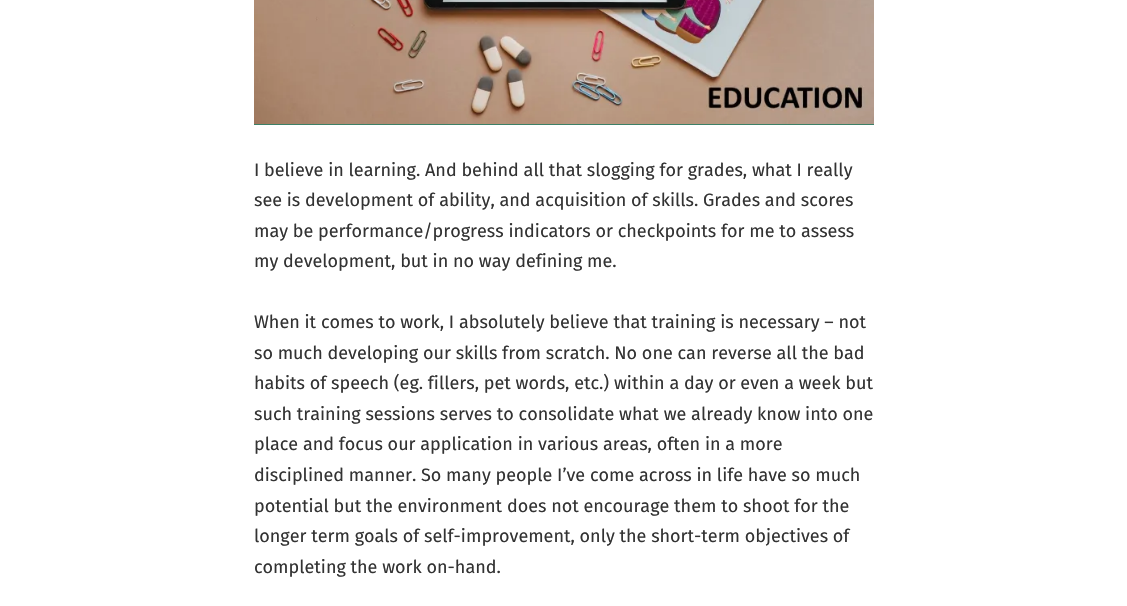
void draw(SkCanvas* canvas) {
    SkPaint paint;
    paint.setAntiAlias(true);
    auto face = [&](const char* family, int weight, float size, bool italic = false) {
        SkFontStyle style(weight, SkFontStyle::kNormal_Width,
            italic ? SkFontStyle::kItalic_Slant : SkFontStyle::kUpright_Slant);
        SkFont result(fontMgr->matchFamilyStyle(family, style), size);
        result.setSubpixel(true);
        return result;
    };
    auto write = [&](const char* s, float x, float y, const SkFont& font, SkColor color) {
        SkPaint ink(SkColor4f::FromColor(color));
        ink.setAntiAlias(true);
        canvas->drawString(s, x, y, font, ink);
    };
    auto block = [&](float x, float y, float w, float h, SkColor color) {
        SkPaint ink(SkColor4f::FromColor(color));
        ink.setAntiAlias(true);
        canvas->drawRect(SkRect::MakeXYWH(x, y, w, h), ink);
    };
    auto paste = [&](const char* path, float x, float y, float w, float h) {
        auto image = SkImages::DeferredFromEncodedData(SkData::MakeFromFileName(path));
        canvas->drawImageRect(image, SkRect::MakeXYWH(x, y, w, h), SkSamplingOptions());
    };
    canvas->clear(SK_ColorWHITE);
    block(254, 124, 620, 1, SkColorSetRGB(60, 128, 103));
    paste("pic1.png", 254, 0, 620, 124);
    auto kFont1 = face("Fira Sans", 400, 18);
    write("I believe in learning. And behind all that slogging for grades, what I really", 254, 176, kFont1, SkColorSetRGB(51, 51, 51));
    write("see is development of ability, and acquisition of skills. Grades and scores", 254, 206, kFont1, SkColorSetRGB(51, 51, 51));
    write("may be performance/progress indicators or checkpoints for me to assess", 254, 237, kFont1, SkColorSetRGB(51, 51, 51));
    write("my development, but in no way defining me.", 254, 267, kFont1, SkColorSetRGB(51, 51, 51));
    write("When it comes to work, I absolutely believe that training is necessary – not", 254, 328, kFont1, SkColorSetRGB(51, 51, 51));
    write("so much developing our skills from scratch. No one can reverse all the bad", 254, 359, kFont1, SkColorSetRGB(51, 51, 51));
    write("habits of speech (eg. fillers, pet words, etc.) within a day or even a week but", 254, 389, kFont1, SkColorSetRGB(51, 51, 51));
    write("such training sessions serves to consolidate what we already know into one", 254, 420, kFont1, SkColorSetRGB(51, 51, 51));
    write("place and focus our application in various areas, often in a more", 254, 450, kFont1, SkColorSetRGB(51, 51, 51));
    write("disciplined manner. So many people I’ve come across in life have so much", 254, 481, kFont1, SkColorSetRGB(51, 51, 51));
    write("potential but the environment does not encourage them to shoot for the", 254, 512, kFont1, SkColorSetRGB(51, 51, 51));
    write("longer term goals of self-improvement, only the short-term objectives of", 254, 542, kFont1, SkColorSetRGB(51, 51, 51));
    write("completing the work on-hand.", 254, 573, kFont1, SkColorSetRGB(51, 51, 51));
}
